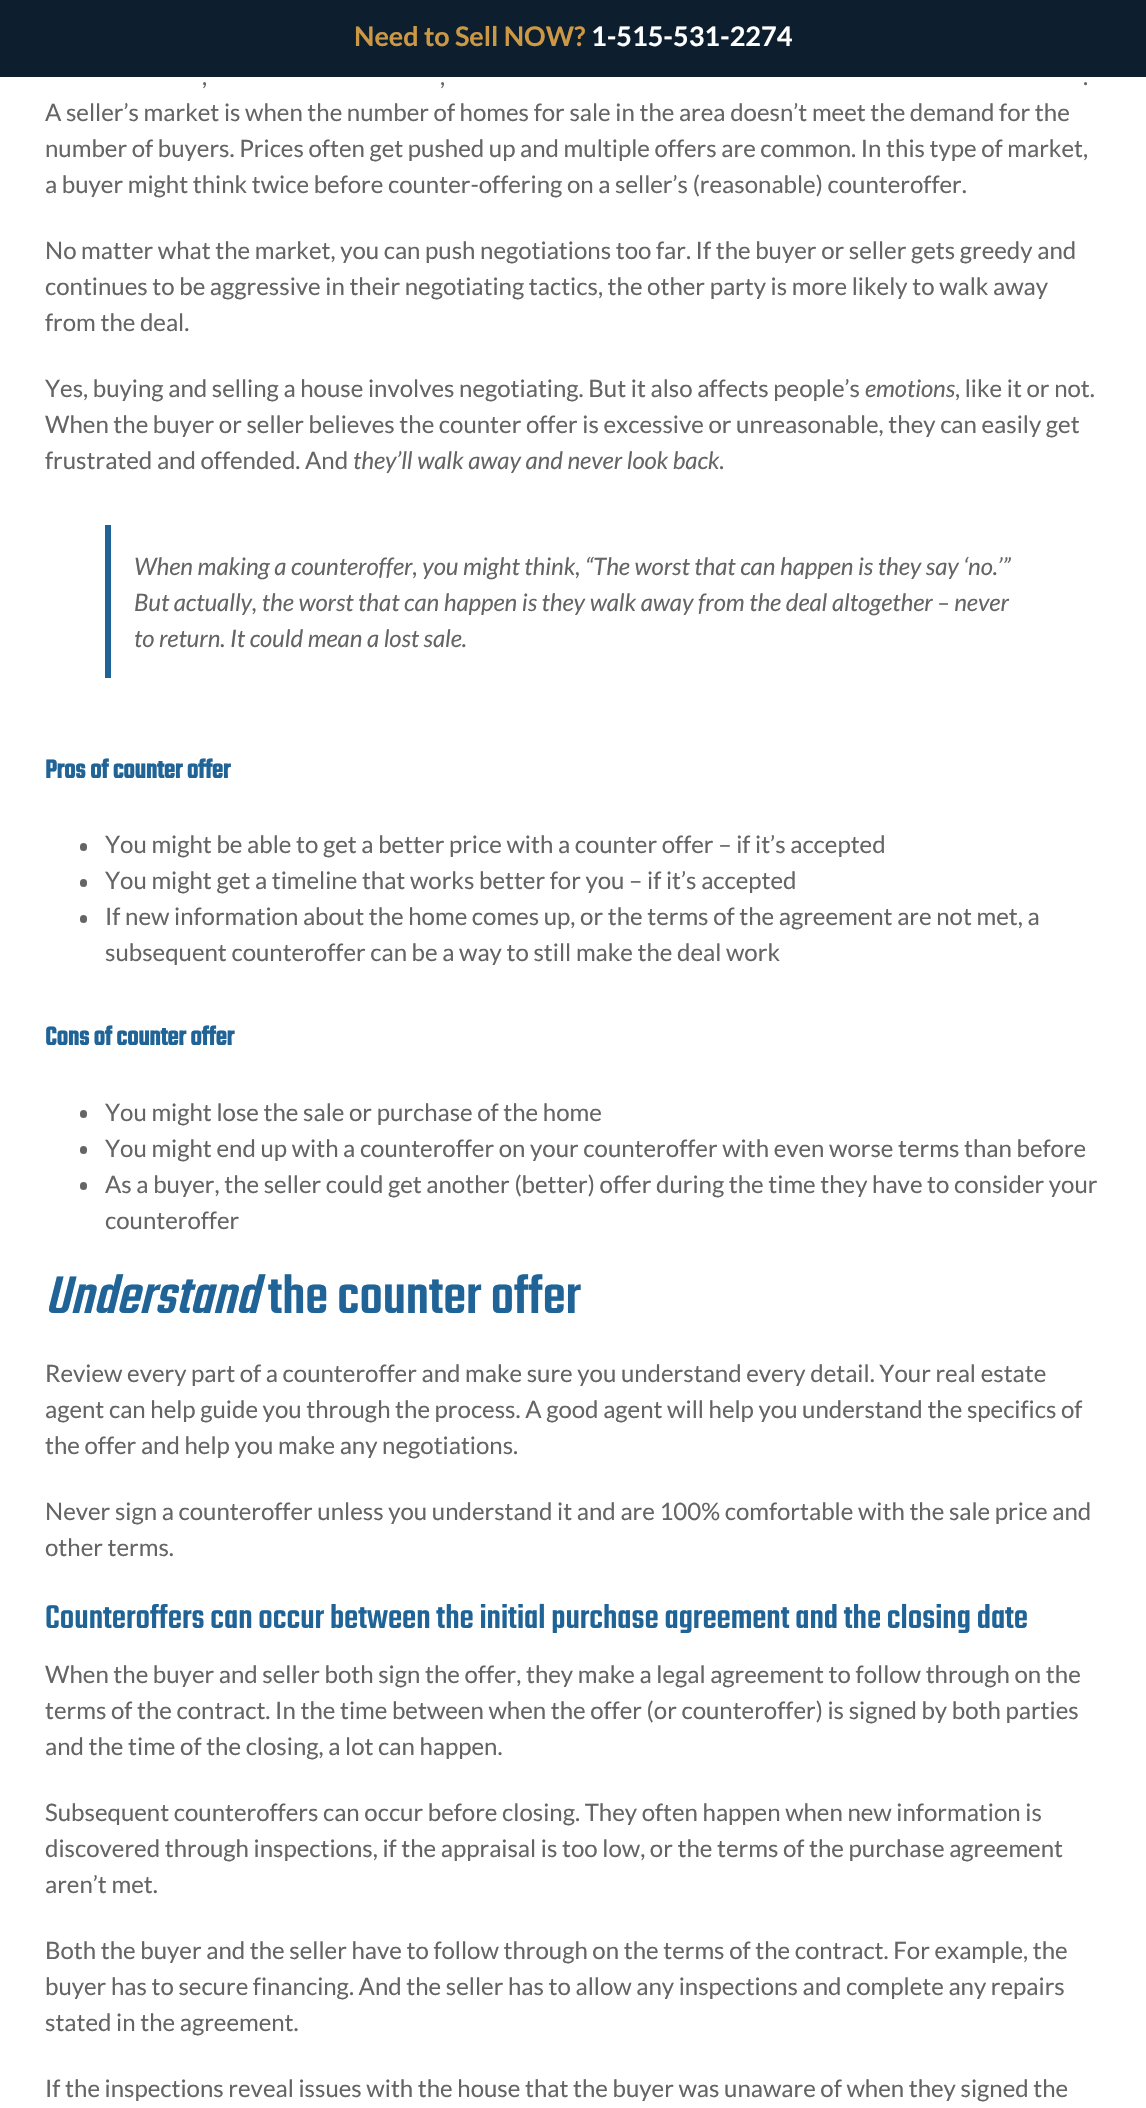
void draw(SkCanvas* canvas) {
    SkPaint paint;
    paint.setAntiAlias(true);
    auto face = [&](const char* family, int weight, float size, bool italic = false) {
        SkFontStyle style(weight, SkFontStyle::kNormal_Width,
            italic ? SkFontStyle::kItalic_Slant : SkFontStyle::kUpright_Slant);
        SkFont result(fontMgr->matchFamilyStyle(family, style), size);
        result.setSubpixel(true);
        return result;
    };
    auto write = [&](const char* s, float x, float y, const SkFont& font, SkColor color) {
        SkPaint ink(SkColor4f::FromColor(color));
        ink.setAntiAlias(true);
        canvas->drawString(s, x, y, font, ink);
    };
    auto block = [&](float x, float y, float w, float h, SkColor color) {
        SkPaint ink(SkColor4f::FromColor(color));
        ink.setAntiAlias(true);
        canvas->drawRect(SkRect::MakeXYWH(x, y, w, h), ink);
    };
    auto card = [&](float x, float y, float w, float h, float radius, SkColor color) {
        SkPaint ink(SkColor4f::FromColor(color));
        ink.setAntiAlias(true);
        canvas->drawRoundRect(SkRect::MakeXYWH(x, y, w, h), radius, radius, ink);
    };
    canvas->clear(SK_ColorWHITE);
    block(0, 0, 1146, 77, SkColorSetRGB(13, 31, 47));
    auto kFont1 = face("Lato", 700, 27);
    write("Need to Sell NOW?", 354, 46, kFont1, SkColorSetRGB(204, 152, 68));
    write("1-515-531-2274", 591, 46, kFont1, SK_ColorWHITE);
    auto kFont2 = face("Lato", 400, 24);
    write(",", 202, 85, kFont2, SkColorSetRGB(101, 101, 101));
    write(",", 440, 85, kFont2, SkColorSetRGB(101, 101, 101));
    write(".", 1083, 85, kFont2, SkColorSetRGB(101, 101, 101));
    write("A seller’s market is when the number of homes for sale in the area doesn’t meet the demand for the", 45, 121, kFont2, SkColorSetRGB(101, 101, 101));
    write("number of buyers. Prices often get pushed up and multiple offers are common. In this type of market,", 45, 157, kFont2, SkColorSetRGB(101, 101, 101));
    write("a buyer might think twice before counter-offering on a seller’s (reasonable) counteroffer.", 45, 193, kFont2, SkColorSetRGB(101, 101, 101));
    write("No matter what the market, you can push negotiations too far. If the buyer or seller gets greedy and", 45, 259, kFont2, SkColorSetRGB(101, 101, 101));
    write("continues to be aggressive in their negotiating tactics, the other party is more likely to walk away", 45, 295, kFont2, SkColorSetRGB(101, 101, 101));
    write("from the deal.", 45, 331, kFont2, SkColorSetRGB(101, 101, 101));
    write("Yes, buying and selling a house involves negotiating. But it also affects people’s", 45, 397, kFont2, SkColorSetRGB(101, 101, 101));
    auto kFont3 = face("Lato", 400, 24, true);
    write("emotions", 865, 397, kFont3, SkColorSetRGB(101, 101, 101));
    write(", like it or not.", 955, 397, kFont2, SkColorSetRGB(101, 101, 101));
    write("When the buyer or seller believes the counter offer is excessive or unreasonable, they can easily get", 45, 433, kFont2, SkColorSetRGB(101, 101, 101));
    write("frustrated and offended. And", 45, 469, kFont2, SkColorSetRGB(101, 101, 101));
    write("they’ll walk away and never look back", 353, 469, kFont3, SkColorSetRGB(101, 101, 101));
    write(".", 719, 469, kFont2, SkColorSetRGB(101, 101, 101));
    block(105, 525, 6, 153, SkColorSetRGB(32, 100, 151));
    write("When making a counteroffer, you might think, “The worst that can happen is they say ‘no.’”", 134, 575, kFont3, SkColorSetRGB(101, 101, 101));
    write("But actually, the worst that can happen is they walk away from the deal altogether – never", 134, 611, kFont3, SkColorSetRGB(101, 101, 101));
    write("to return. It could mean a lost sale.", 134, 647, kFont3, SkColorSetRGB(101, 101, 101));
    auto kFont4 = face("Teko", 700, 28);
    write("Pros of counter offer", 45, 778, kFont4, SkColorSetRGB(32, 100, 151));
    card(80, 843, 7, 8, 3.5f, SkColorSetRGB(101, 101, 101));
    write("You might be able to get a better price with a counter offer – if it’s accepted", 105, 853, kFont2, SkColorSetRGB(101, 101, 101));
    card(80, 879, 7, 8, 3.5f, SkColorSetRGB(101, 101, 101));
    write("You might get a timeline that works better for you – if it’s accepted", 105, 889, kFont2, SkColorSetRGB(101, 101, 101));
    card(80, 915, 7, 8, 3.5f, SkColorSetRGB(101, 101, 101));
    write("If new information about the home comes up, or the terms of the agreement are not met, a", 105, 925, kFont2, SkColorSetRGB(101, 101, 101));
    write("subsequent counteroffer can be a way to still make the deal work", 105, 961, kFont2, SkColorSetRGB(101, 101, 101));
    write("Cons of counter offer", 45, 1045, kFont4, SkColorSetRGB(32, 100, 151));
    card(80, 1110, 7, 8, 3.5f, SkColorSetRGB(101, 101, 101));
    write("You might lose the sale or purchase of the home", 105, 1121, kFont2, SkColorSetRGB(101, 101, 101));
    card(80, 1146, 7, 8, 3.5f, SkColorSetRGB(101, 101, 101));
    write("You might end up with a counteroffer on your counteroffer with even worse terms than before", 105, 1157, kFont2, SkColorSetRGB(101, 101, 101));
    card(80, 1182, 7, 8, 3.5f, SkColorSetRGB(101, 101, 101));
    write("As a buyer, the seller could get another (better) offer during the time they have to consider your", 105, 1193, kFont2, SkColorSetRGB(101, 101, 101));
    write("counteroffer", 105, 1229, kFont2, SkColorSetRGB(101, 101, 101));
    auto kFont5 = face("Teko", 300, 58, true);
    write("Understand", 45, 1313, kFont5, SkColorSetRGB(32, 100, 151));
    auto kFont6 = face("Teko", 300, 58);
    write("the counter offer", 268, 1313, kFont6, SkColorSetRGB(32, 100, 151));
    write("Review every part of a counteroffer and make sure you understand every detail. Your real estate", 45, 1382, kFont2, SkColorSetRGB(101, 101, 101));
    write("agent can help guide you through the process. A good agent will help you understand the specifics of", 45, 1418, kFont2, SkColorSetRGB(101, 101, 101));
    write("the offer and help you make any negotiations.", 45, 1454, kFont2, SkColorSetRGB(101, 101, 101));
    write("Never sign a counteroffer unless you understand it and are 100% comfortable with the sale price and", 45, 1520, kFont2, SkColorSetRGB(101, 101, 101));
    write("other terms.", 45, 1556, kFont2, SkColorSetRGB(101, 101, 101));
    auto kFont7 = face("Teko", 300, 36);
    write("Counteroffers can occur between the initial purchase agreement and the closing date", 45, 1628, kFont7, SkColorSetRGB(32, 100, 151));
    write("When the buyer and seller both sign the offer, they make a legal agreement to follow through on the", 45, 1683, kFont2, SkColorSetRGB(101, 101, 101));
    write("terms of the contract. In the time between when the offer (or counteroffer) is signed by both parties", 45, 1719, kFont2, SkColorSetRGB(101, 101, 101));
    write("and the time of the closing, a lot can happen.", 45, 1755, kFont2, SkColorSetRGB(101, 101, 101));
    write("Subsequent counteroffers can occur before closing. They often happen when new information is", 45, 1821, kFont2, SkColorSetRGB(101, 101, 101));
    write("discovered through inspections, if the appraisal is too low, or the terms of the purchase agreement", 45, 1857, kFont2, SkColorSetRGB(101, 101, 101));
    write("aren’t met.", 45, 1893, kFont2, SkColorSetRGB(101, 101, 101));
    write("Both the buyer and the seller have to follow through on the terms of the contract. For example, the", 45, 1959, kFont2, SkColorSetRGB(101, 101, 101));
    write("buyer has to secure financing. And the seller has to allow any inspections and complete any repairs", 45, 1995, kFont2, SkColorSetRGB(101, 101, 101));
    write("stated in the agreement.", 45, 2031, kFont2, SkColorSetRGB(101, 101, 101));
    write("If the inspections reveal issues with the house that the buyer was unaware of when they signed the", 45, 2097, kFont2, SkColorSetRGB(101, 101, 101));
}
